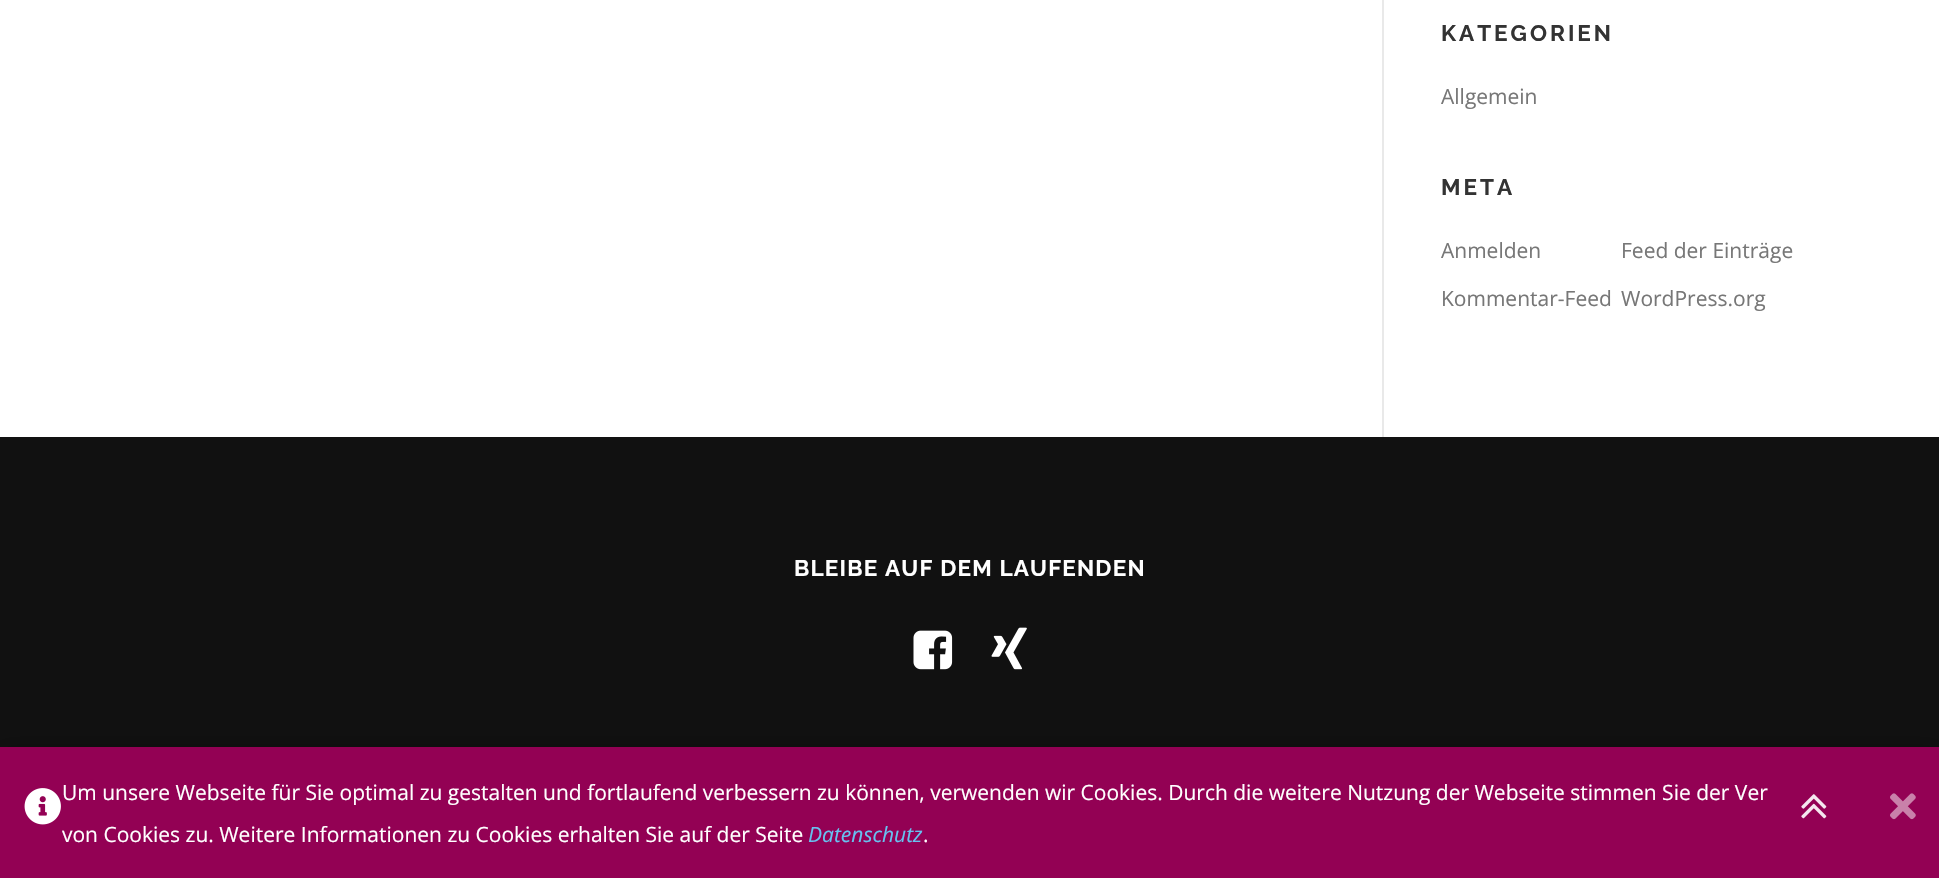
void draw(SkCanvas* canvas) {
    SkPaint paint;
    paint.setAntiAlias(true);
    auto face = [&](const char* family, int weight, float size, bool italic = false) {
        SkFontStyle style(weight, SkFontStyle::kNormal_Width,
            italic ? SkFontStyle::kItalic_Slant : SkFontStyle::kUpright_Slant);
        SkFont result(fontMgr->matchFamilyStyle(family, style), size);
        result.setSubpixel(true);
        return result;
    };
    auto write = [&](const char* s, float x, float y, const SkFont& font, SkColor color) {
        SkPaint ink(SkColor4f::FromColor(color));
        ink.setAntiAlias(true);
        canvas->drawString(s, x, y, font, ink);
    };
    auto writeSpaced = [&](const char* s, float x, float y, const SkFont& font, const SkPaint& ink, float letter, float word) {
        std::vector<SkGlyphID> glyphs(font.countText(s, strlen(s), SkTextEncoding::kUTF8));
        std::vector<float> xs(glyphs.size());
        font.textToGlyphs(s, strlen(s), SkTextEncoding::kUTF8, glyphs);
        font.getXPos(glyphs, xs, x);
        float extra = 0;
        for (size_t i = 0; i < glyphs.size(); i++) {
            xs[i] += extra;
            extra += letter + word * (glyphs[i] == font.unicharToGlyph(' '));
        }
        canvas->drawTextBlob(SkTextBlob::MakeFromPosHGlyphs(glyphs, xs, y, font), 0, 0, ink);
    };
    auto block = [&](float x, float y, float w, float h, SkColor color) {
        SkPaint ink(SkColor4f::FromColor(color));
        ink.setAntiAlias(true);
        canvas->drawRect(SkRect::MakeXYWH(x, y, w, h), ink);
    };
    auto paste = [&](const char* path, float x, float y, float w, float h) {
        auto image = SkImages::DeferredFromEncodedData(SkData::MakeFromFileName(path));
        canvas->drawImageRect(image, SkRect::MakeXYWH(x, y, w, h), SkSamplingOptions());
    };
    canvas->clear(SK_ColorWHITE);
    block(1382, 0, 2, 437, SkColorSetRGB(233, 233, 233));
    auto kFont1 = face("Raleway", 700, 22.5f);
    paint.setColor(SkColorSetRGB(51, 51, 51));
    writeSpaced("KATEGORIEN", 1441, 41, kFont1, paint, 3, 0);
    auto kFont2 = face("Open Sans", 400, 21);
    write("Allgemein", 1441, 104, kFont2, SkColorSetRGB(119, 119, 119));
    writeSpaced("META", 1441, 195, kFont1, paint, 3, 0);
    write("Anmelden", 1441, 258, kFont2, SkColorSetRGB(119, 119, 119));
    write("Feed der Einträge", 1621, 258, kFont2, SkColorSetRGB(119, 119, 119));
    write("Kommentar-Feed", 1441, 306, kFont2, SkColorSetRGB(119, 119, 119));
    write("WordPress.org", 1621, 306, kFont2, SkColorSetRGB(119, 119, 119));
    block(0, 437, 1939, 310, SkColorSetRGB(17, 17, 17));
    paint.setColor(SK_ColorWHITE);
    writeSpaced("BLEIBE AUF DEM LAUFENDEN", 794, 576, kFont1, paint, 1.2f, 0);
    paste("pic1.png", 913, 630, 40, 40);
    paste("pic2.png", 991, 627, 36, 43);
    paint.setColor(SkColorSetARGB(102, 0, 0, 0));
    paint.setMaskFilter(SkMaskFilter::MakeBlur(kNormal_SkBlurStyle, 11));
    canvas->drawRect(SkRect::MakeXYWH(0, 753, 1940, 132), paint);
    paint.setMaskFilter(nullptr);
    block(0, 747, 1939, 131, SkColorSetRGB(147, 1, 84));
    paste("pic3.png", 1801, 794, 26, 25);
    paste("pic4.png", 24, 788, 37, 37);
    write("Um unsere Webseite für Sie optimal zu gestalten und fortlaufend verbessern zu können, verwenden wir Cookies. Durch die weitere Nutzung der Webseite stimmen Sie der Ver", 62, 800, kFont2, SK_ColorWHITE);
    write("von Cookies zu. Weitere Informationen zu Cookies erhalten Sie auf der Seite", 62, 842, kFont2, SK_ColorWHITE);
    auto kFont3 = face("Open Sans", 400, 21, true);
    write("Datenschutz", 808, 842, kFont3, SkColorSetRGB(103, 194, 240));
    write(".", 923, 842, kFont2, SK_ColorWHITE);
    paste("pic5.png", 1890, 793, 26, 27);
}
